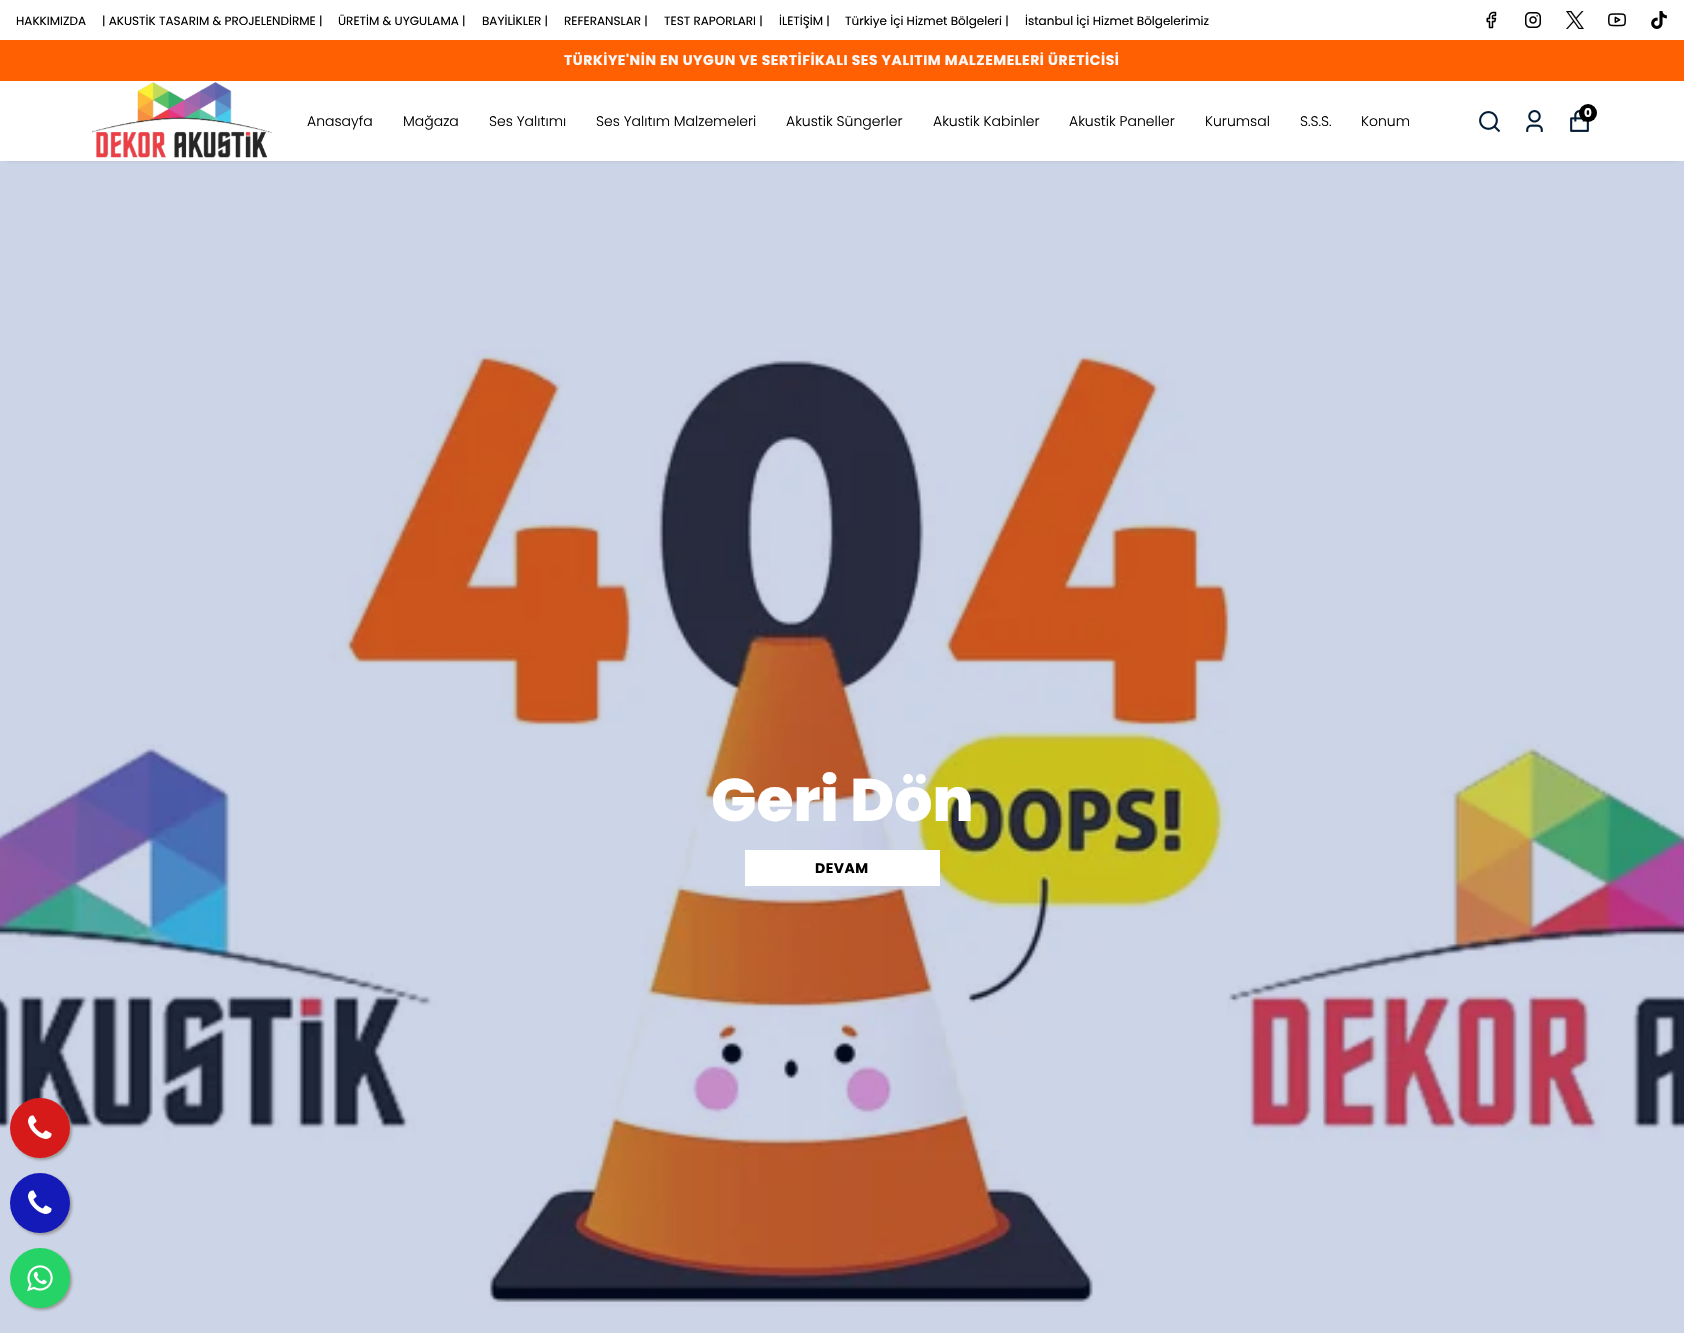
void draw(SkCanvas* canvas) {
    SkPaint paint;
    paint.setAntiAlias(true);
    auto face = [&](const char* family, int weight, float size, bool italic = false) {
        SkFontStyle style(weight, SkFontStyle::kNormal_Width,
            italic ? SkFontStyle::kItalic_Slant : SkFontStyle::kUpright_Slant);
        SkFont result(fontMgr->matchFamilyStyle(family, style), size);
        result.setSubpixel(true);
        return result;
    };
    auto write = [&](const char* s, float x, float y, const SkFont& font, SkColor color) {
        SkPaint ink(SkColor4f::FromColor(color));
        ink.setAntiAlias(true);
        canvas->drawString(s, x, y, font, ink);
    };
    auto writeSpaced = [&](const char* s, float x, float y, const SkFont& font, const SkPaint& ink, float letter, float word) {
        std::vector<SkGlyphID> glyphs(font.countText(s, strlen(s), SkTextEncoding::kUTF8));
        std::vector<float> xs(glyphs.size());
        font.textToGlyphs(s, strlen(s), SkTextEncoding::kUTF8, glyphs);
        font.getXPos(glyphs, xs, x);
        float extra = 0;
        for (size_t i = 0; i < glyphs.size(); i++) {
            xs[i] += extra;
            extra += letter + word * (glyphs[i] == font.unicharToGlyph(' '));
        }
        canvas->drawTextBlob(SkTextBlob::MakeFromPosHGlyphs(glyphs, xs, y, font), 0, 0, ink);
    };
    auto block = [&](float x, float y, float w, float h, SkColor color) {
        SkPaint ink(SkColor4f::FromColor(color));
        ink.setAntiAlias(true);
        canvas->drawRect(SkRect::MakeXYWH(x, y, w, h), ink);
    };
    auto paste = [&](const char* path, float x, float y, float w, float h) {
        auto image = SkImages::DeferredFromEncodedData(SkData::MakeFromFileName(path));
        canvas->drawImageRect(image, SkRect::MakeXYWH(x, y, w, h), SkSamplingOptions());
    };
    canvas->clear(SK_ColorWHITE);
    block(0, 161, 1684, 1172, SkColorSetRGB(204, 212, 232));
    auto kFont1 = face("Poppins", 400, 12);
    write("HAKKIMIZDA", 16, 25, kFont1, SK_ColorBLACK);
    write("| AKUSTİK TASARIM & PROJELENDİRME |", 102, 25, kFont1, SK_ColorBLACK);
    write("ÜRETİM & UYGULAMA |", 338, 25, kFont1, SK_ColorBLACK);
    write("BAYİLİKLER |", 482, 25, kFont1, SK_ColorBLACK);
    write("REFERANSLAR |", 564, 25, kFont1, SK_ColorBLACK);
    write("TEST RAPORLARI |", 664, 25, kFont1, SK_ColorBLACK);
    write("İLETİŞİM |", 779, 25, kFont1, SK_ColorBLACK);
    write("Türkiye İçi Hizmet Bölgeleri |", 845, 25, kFont1, SK_ColorBLACK);
    write("İstanbul İçi Hizmet Bölgelerimiz", 1025, 25, kFont1, SK_ColorBLACK);
    paste("pic1.png", 1486, 11, 11, 18);
    paste("pic2.png", 1525, 12, 16, 16);
    paste("pic3.png", 1566, 11, 18, 18);
    paste("pic4.png", 1608, 13, 18, 14);
    paste("pic5.png", 1651, 11, 16, 18);
    block(0, 40, 1684, 41, SkColorSetRGB(255, 96, 1));
    auto kFont2 = face("Poppins", 700, 14);
    paint.setColor(SkColorSetRGB(248, 248, 248));
    writeSpaced("TÜRKİYE'NİN EN UYGUN VE SERTİFİKALI SES YALITIM MALZEMELERİ ÜRETİCİSİ", 564, 65, kFont2, paint, 0.55f, 0);
    canvas->save();
    canvas->clipRect(SkRect::MakeXYWH(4, 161, 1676, 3));
    paint.setColor(SkColorSetRGB(152, 152, 152));
    paint.setMaskFilter(SkMaskFilter::MakeBlur(kNormal_SkBlurStyle, 2.5f));
    canvas->drawRect(SkRect::MakeXYWH(7, 93, 1670, 66), paint);
    paint.setMaskFilter(nullptr);
    canvas->restore();
    paste("pic6.png", 92, 82, 180, 76);
    paste("pic7.png", 1479, 111, 22, 22);
    paste("pic8.png", 1526, 110, 17, 22);
    paste("pic9.png", 1570, 110, 19, 22);
    paint.setColor(SK_ColorBLACK);
    canvas->drawCircle(1588, 113, 9, paint);
    auto kFont3 = face("Poppins", 700, 12);
    write("0", 1584, 117, kFont3, SK_ColorWHITE);
    auto kFont4 = face("Poppins", 300, 14);
    write("Anasayfa", 307, 126, kFont4, SK_ColorBLACK);
    write("Mağaza", 403, 126, kFont4, SK_ColorBLACK);
    write("Ses Yalıtımı", 489, 126, kFont4, SK_ColorBLACK);
    write("Ses Yalıtım Malzemeleri", 596, 126, kFont4, SK_ColorBLACK);
    write("Akustik Süngerler", 786, 126, kFont4, SK_ColorBLACK);
    write("Akustik Kabinler", 933, 126, kFont4, SK_ColorBLACK);
    write("Akustik Paneller", 1069, 126, kFont4, SK_ColorBLACK);
    write("Kurumsal", 1205, 126, kFont4, SK_ColorBLACK);
    write("S.S.S.", 1300, 126, kFont4, SK_ColorBLACK);
    write("Konum", 1361, 126, kFont4, SK_ColorBLACK);
    paste("pic10.png", 0, 349, 1684, 958);
    auto kFont5 = face("Poppins", 800, 60);
    write("Geri Dön", 711, 821, kFont5, SK_ColorWHITE);
    block(745, 850, 195, 36, SK_ColorWHITE);
    writeSpaced("DEVAM", 815, 873, kFont2, paint, 0.5f, 0);
    paint.setColor(SkColorSetRGB(153, 153, 153));
    paint.setMaskFilter(SkMaskFilter::MakeBlur(kNormal_SkBlurStyle, 1.5f));
    canvas->drawRoundRect(SkRect::MakeXYWH(12, 1100, 60, 60), 30, 30, paint);
    paint.setMaskFilter(nullptr);
    paint.setColor(SkColorSetRGB(214, 26, 26));
    canvas->drawCircle(40, 1128, 30, paint);
    paste("pic11.png", 28, 1115, 24, 24);
    paint.setColor(SkColorSetRGB(153, 153, 153));
    paint.setMaskFilter(SkMaskFilter::MakeBlur(kNormal_SkBlurStyle, 1.5f));
    canvas->drawRoundRect(SkRect::MakeXYWH(12, 1175, 60, 60), 30, 30, paint);
    paint.setMaskFilter(nullptr);
    paint.setColor(SkColorSetRGB(20, 26, 184));
    canvas->drawCircle(40, 1203, 30, paint);
    paste("pic12.png", 28, 1190, 24, 24);
    paint.setColor(SkColorSetRGB(153, 153, 153));
    paint.setMaskFilter(SkMaskFilter::MakeBlur(kNormal_SkBlurStyle, 1.5f));
    canvas->drawRoundRect(SkRect::MakeXYWH(12, 1250, 60, 60), 30, 30, paint);
    paint.setMaskFilter(nullptr);
    paint.setColor(SkColorSetRGB(37, 211, 102));
    canvas->drawCircle(40, 1278, 30, paint);
    paste("pic13.png", 27, 1265, 26, 27);
}
